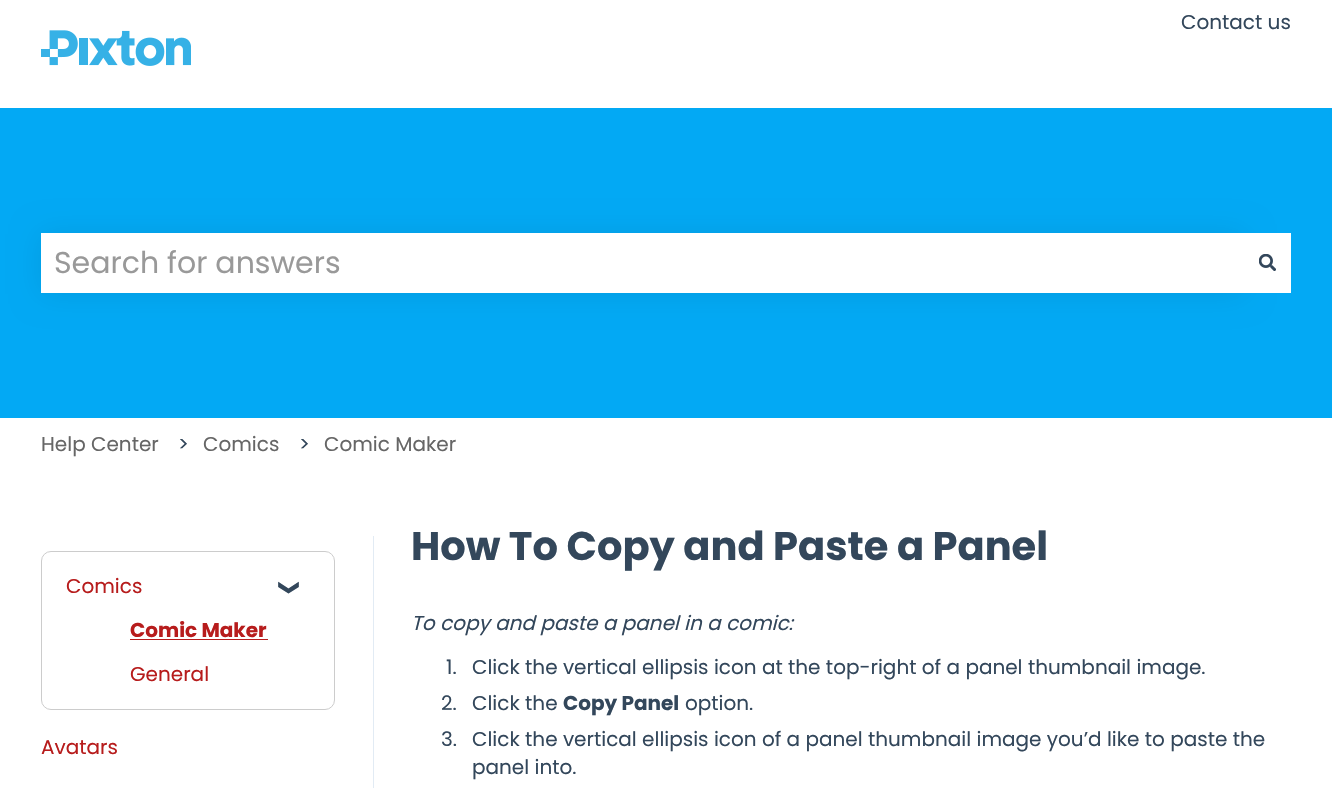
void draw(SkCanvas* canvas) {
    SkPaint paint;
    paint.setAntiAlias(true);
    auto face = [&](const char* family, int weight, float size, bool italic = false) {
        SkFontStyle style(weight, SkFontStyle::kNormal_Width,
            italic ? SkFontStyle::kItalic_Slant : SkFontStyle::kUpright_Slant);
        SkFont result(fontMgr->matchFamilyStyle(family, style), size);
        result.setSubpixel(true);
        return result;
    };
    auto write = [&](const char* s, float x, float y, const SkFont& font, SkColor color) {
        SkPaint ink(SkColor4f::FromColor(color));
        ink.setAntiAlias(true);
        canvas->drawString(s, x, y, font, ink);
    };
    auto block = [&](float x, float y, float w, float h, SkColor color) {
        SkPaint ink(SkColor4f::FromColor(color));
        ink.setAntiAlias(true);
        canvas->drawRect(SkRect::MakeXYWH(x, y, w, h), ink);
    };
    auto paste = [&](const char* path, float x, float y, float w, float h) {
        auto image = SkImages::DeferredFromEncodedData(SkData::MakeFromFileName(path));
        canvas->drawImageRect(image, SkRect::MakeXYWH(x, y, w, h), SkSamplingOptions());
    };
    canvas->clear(SK_ColorWHITE);
    auto kFont1 = face("Poppins", 400, 20);
    write("Contact us", 1181, 29, kFont1, SkColorSetRGB(51, 71, 91));
    paste("pic1.png", 41, 30, 150, 36);
    block(0, 108, 1332, 310, SkColorSetRGB(3, 169, 244));
    paint.setColor(SkColorSetARGB(20, 0, 0, 0));
    paint.setMaskFilter(SkMaskFilter::MakeBlur(kNormal_SkBlurStyle, 15));
    canvas->drawRect(SkRect::MakeXYWH(41, 234, 1203, 60), paint);
    paint.setMaskFilter(nullptr);
    block(41, 233, 1250, 60, SK_ColorWHITE);
    auto kFont2 = face("Poppins", 400, 30);
    write("Search for answers", 54, 273, kFont2, SkColorSetRGB(153, 153, 153));
    paste("pic2.png", 1259, 254, 17, 17);
    write("Help Center", 41, 451, kFont1, SkColorSetRGB(102, 102, 102));
    write(">", 178, 451, kFont1, SkColorSetRGB(51, 71, 91));
    write("Comics", 203, 451, kFont1, SkColorSetRGB(102, 102, 102));
    write(">", 299, 451, kFont1, SkColorSetRGB(51, 71, 91));
    write("Comic Maker", 324, 451, kFont1, SkColorSetRGB(102, 102, 102));
    block(373, 536, 1, 252, SkColorSetRGB(226, 235, 244));
    paint.setStyle(SkPaint::kStroke_Style);
    paint.setStrokeWidth(1);
    paint.setColor(SkColorSetRGB(204, 204, 204));
    canvas->drawRoundRect(SkRect::MakeXYWH(41.5f, 551.5f, 293, 158), 9.5f, 9.5f, paint);
    write("Comics", 66, 593, kFont1, SkColorSetRGB(183, 28, 28));
    auto kFont3 = face("DejaVu Sans", 700, 20);
    canvas->save();
    canvas->rotate(90, 283, 579);
    write("❯", 283, 579, kFont3, SkColorSetRGB(51, 71, 91));
    canvas->restore();
    auto kFont4 = face("Poppins", 700, 20);
    write("Comic Maker", 130, 637, kFont4, SkColorSetRGB(183, 28, 28));
    block(130, 639, 138, 1, SkColorSetRGB(183, 28, 28));
    write("General", 130, 681, kFont1, SkColorSetRGB(183, 28, 28));
    write("Avatars", 41, 754, kFont1, SkColorSetRGB(183, 28, 28));
    auto kFont5 = face("Poppins", 700, 40);
    write("How To Copy and Paste a Panel", 411, 560, kFont5, SkColorSetRGB(51, 71, 91));
    auto kFont6 = face("Poppins", 400, 20, true);
    write("To copy and paste a panel in a comic:", 411, 630, kFont6, SkColorSetRGB(51, 71, 91));
    write("1.", 446, 674, kFont1, SkColorSetRGB(51, 71, 91));
    write("Click the vertical ellipsis icon at the top-right of a panel thumbnail image.", 472, 674, kFont1, SkColorSetRGB(51, 71, 91));
    write("2.", 441, 710, kFont1, SkColorSetRGB(51, 71, 91));
    write("Click the", 472, 710, kFont1, SkColorSetRGB(51, 71, 91));
    write("Copy Panel", 563, 710, kFont4, SkColorSetRGB(51, 71, 91));
    write("option.", 685, 710, kFont1, SkColorSetRGB(51, 71, 91));
    write("3.", 441, 746, kFont1, SkColorSetRGB(51, 71, 91));
    write("Click the vertical ellipsis icon of a panel thumbnail image you’d like to paste the", 472, 746, kFont1, SkColorSetRGB(51, 71, 91));
    write("panel into.", 472, 774, kFont1, SkColorSetRGB(51, 71, 91));
}
